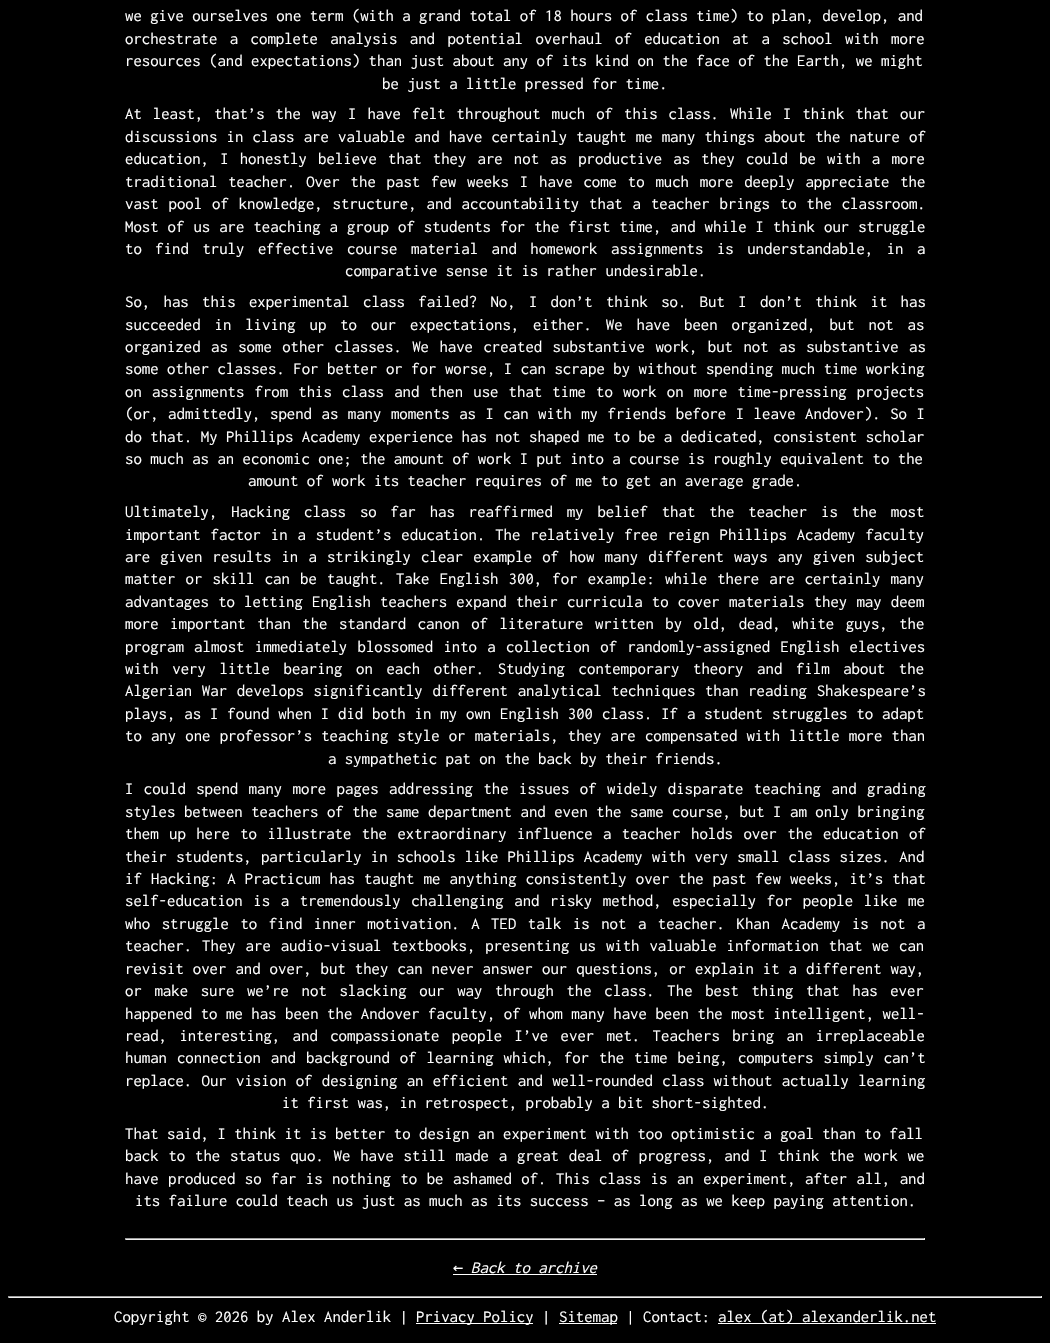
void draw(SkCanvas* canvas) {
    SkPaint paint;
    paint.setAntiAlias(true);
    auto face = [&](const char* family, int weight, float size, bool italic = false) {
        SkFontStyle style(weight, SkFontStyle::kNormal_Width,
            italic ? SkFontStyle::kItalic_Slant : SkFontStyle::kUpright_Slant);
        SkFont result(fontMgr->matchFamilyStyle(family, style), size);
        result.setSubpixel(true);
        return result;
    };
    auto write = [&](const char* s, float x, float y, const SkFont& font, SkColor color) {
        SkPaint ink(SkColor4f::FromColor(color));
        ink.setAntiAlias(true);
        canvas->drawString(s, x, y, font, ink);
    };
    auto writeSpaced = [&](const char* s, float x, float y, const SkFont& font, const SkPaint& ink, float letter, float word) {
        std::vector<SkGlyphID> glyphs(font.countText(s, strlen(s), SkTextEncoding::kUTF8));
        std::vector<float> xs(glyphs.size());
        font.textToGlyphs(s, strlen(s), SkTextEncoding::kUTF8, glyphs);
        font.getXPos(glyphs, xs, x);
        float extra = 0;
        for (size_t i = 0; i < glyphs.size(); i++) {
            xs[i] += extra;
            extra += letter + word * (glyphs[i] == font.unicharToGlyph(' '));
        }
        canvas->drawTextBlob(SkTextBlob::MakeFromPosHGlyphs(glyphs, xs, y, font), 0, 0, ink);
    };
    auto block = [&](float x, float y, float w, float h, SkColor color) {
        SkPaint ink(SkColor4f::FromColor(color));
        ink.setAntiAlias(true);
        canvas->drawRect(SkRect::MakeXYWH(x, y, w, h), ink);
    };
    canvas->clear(SK_ColorBLACK);
    auto kFont1 = face("Inconsolata", 400, 16.8f);
    write("we give ourselves one term (with a grand total of 18 hours of class time) to plan, develop, and", 125, 21, kFont1, SK_ColorWHITE);
    paint.setColor(SK_ColorWHITE);
    writeSpaced("orchestrate a complete analysis and potential overhaul of education at a school with more", 125, 44, kFont1, paint, 0, 4);
    write("resources (and expectations) than just about any of its kind on the face of the Earth, we might", 125, 66, kFont1, SK_ColorWHITE);
    write("be just a little pressed for time.", 382, 89, kFont1, SK_ColorWHITE);
    writeSpaced("At least, that’s the way I have felt throughout much of this class. While I think that our", 125, 119, kFont1, paint, 0, 2.6f);
    writeSpaced("discussions in class are valuable and have certainly taught me many things about the nature of", 125, 142, kFont1, paint, 0, 0.75f);
    writeSpaced("education, I honestly believe that they are not as productive as they could be with a more", 125, 164, kFont1, paint, 0, 2.75f);
    writeSpaced("traditional teacher. Over the past few weeks I have come to much more deeply appreciate the", 125, 187, kFont1, paint, 0, 2.4f);
    writeSpaced("vast pool of knowledge, structure, and accountability that a teacher brings to the classroom.", 125, 209, kFont1, paint, 0, 1.5f);
    writeSpaced("Most of us are teaching a group of students for the first time, and while I think our struggle", 125, 232, kFont1, paint, 0, 0.6f);
    writeSpaced("to find truly effective course material and homework assignments is understandable, in a", 125, 254, kFont1, paint, 0, 5.1f);
    write("comparative sense it is rather undesirable.", 345, 276, kFont1, SK_ColorWHITE);
    writeSpaced("So, has this experimental class failed? No, I don’t think so. But I don’t think it has", 125, 307, kFont1, paint, 0, 4.9f);
    writeSpaced("succeeded in living up to our expectations, either. We have been organized, but not as", 125, 330, kFont1, paint, 0, 5.5f);
    writeSpaced("organized as some other classes. We have created substantive work, but not as substantive as", 125, 352, kFont1, paint, 0, 2);
    writeSpaced("some other classes. For better or for worse, I can scrape by without spending much time working", 125, 374, kFont1, paint, 0, 0.1f);
    writeSpaced("on assignments from this class and then use that time to work on more time-pressing projects", 125, 397, kFont1, paint, 0, 1.75f);
    writeSpaced("(or, admittedly, spend as many moments as I can with my friends before I leave Andover). So I", 125, 419, kFont1, paint, 0, 1.1f);
    writeSpaced("do that. My Phillips Academy experience has not shaped me to be a dedicated, consistent scholar", 125, 442, kFont1, paint, 0, 0.1f);
    write("so much as an economic one; the amount of work I put into a course is roughly equivalent to the", 125, 464, kFont1, SK_ColorWHITE);
    write("amount of work its teacher requires of me to get an average grade.", 248, 486, kFont1, SK_ColorWHITE);
    writeSpaced("Ultimately, Hacking class so far has reaffirmed my belief that the teacher is the most", 125, 517, kFont1, paint, 0, 5.5f);
    writeSpaced("important factor in a student’s education. The relatively free reign Phillips Academy faculty", 125, 540, kFont1, paint, 0, 1.5f);
    writeSpaced("are given results in a strikingly clear example of how many different ways any given subject", 125, 562, kFont1, paint, 0, 1.75f);
    writeSpaced("matter or skill can be taught. Take English 300, for example: while there are certainly many", 125, 584, kFont1, paint, 0, 1.75f);
    writeSpaced("advantages to letting English teachers expand their curricula to cover materials they may deem", 125, 607, kFont1, paint, 0, 0.75f);
    writeSpaced("more important than the standard canon of literature written by old, dead, white guys, the", 125, 629, kFont1, paint, 0, 3.1f);
    writeSpaced("program almost immediately blossomed into a collection of randomly-assigned English electives", 125, 652, kFont1, paint, 0, 1.9f);
    writeSpaced("with very little bearing on each other. Studying contemporary theory and film about the", 125, 674, kFont1, paint, 0, 5.25f);
    writeSpaced("Algerian War develops significantly different analytical techniques than reading Shakespeare’s", 125, 696, kFont1, paint, 0, 1.25f);
    writeSpaced("plays, as I found when I did both in my own English 300 class. If a student struggles to adapt", 125, 719, kFont1, paint, 0, 0.5f);
    writeSpaced("to any one professor’s teaching style or materials, they are compensated with little more than", 125, 741, kFont1, paint, 0, 0.75f);
    write("a sympathetic pat on the back by their friends.", 328, 764, kFont1, SK_ColorWHITE);
    writeSpaced("I could spend many more pages addressing the issues of widely disparate teaching and grading", 125, 794, kFont1, paint, 0, 2);
    writeSpaced("styles between teachers of the same department and even the same course, but I am only bringing", 125, 817, kFont1, paint, 0, 0.1f);
    writeSpaced("them up here to illustrate the extraordinary influence a teacher holds over the education of", 125, 839, kFont1, paint, 0, 2);
    writeSpaced("their students, particularly in schools like Phillips Academy with very small class sizes. And", 125, 862, kFont1, paint, 0, 0.75f);
    writeSpaced("if Hacking: A Practicum has taught me anything consistently over the past few weeks, it’s that", 125, 884, kFont1, paint, 0, 0.75f);
    writeSpaced("self-education is a tremendously challenging and risky method, especially for people like me", 125, 906, kFont1, paint, 0, 2.25f);
    writeSpaced("who struggle to find inner motivation. A TED talk is not a teacher. Khan Academy is not a", 125, 929, kFont1, paint, 0, 3.1f);
    writeSpaced("teacher. They are audio-visual textbooks, presenting us with valuable information that we can", 125, 951, kFont1, paint, 0, 1.5f);
    writeSpaced("revisit over and over, but they can never answer our questions, or explain it a different way,", 125, 974, kFont1, paint, 0, 0.6f);
    writeSpaced("or make sure we’re not slacking our way through the class. The best thing that has ever", 125, 996, kFont1, paint, 0, 4.25f);
    writeSpaced("happened to me has been the Andover faculty, of whom many have been the most intelligent, well-", 125, 1019, kFont1, paint, 0, 0.1f);
    writeSpaced("read, interesting, and compassionate people I’ve ever met. Teachers bring an irreplaceable", 125, 1041, kFont1, paint, 0, 4);
    writeSpaced("human connection and background of learning which, for the time being, computers simply can’t", 125, 1063, kFont1, paint, 0, 1.5f);
    writeSpaced("replace. Our vision of designing an efficient and well-rounded class without actually learning", 125, 1086, kFont1, paint, 0, 0.9f);
    write("it first was, in retrospect, probably a bit short-sighted.", 282, 1108, kFont1, SK_ColorWHITE);
    write("That said, I think it is better to design an experiment with too optimistic a goal than to fall", 125, 1139, kFont1, SK_ColorWHITE);
    writeSpaced("back to the status quo. We have still made a great deal of progress, and I think the work we", 125, 1161, kFont1, paint, 0, 1.4f);
    writeSpaced("have produced so far is nothing to be ashamed of. This class is an experiment, after all, and", 125, 1184, kFont1, paint, 0, 1.1f);
    write("its failure could teach us just as much as its success – as long as we keep paying attention.", 135, 1206, kFont1, SK_ColorWHITE);
    block(125, 1238, 800, 1, SkColorSetRGB(159, 159, 159));
    block(924, 1238, 1, 2, SkColorSetRGB(238, 238, 238));
    block(125, 1239, 800, 1, SkColorSetRGB(238, 238, 238));
    block(125, 1238, 1, 2, SkColorSetRGB(159, 159, 159));
    auto kFont2 = face("DejaVu Sans Mono", 400, 16.8f, true);
    write("←", 453, 1273, kFont2, SK_ColorWHITE);
    block(453, 1274, 144, 1, SK_ColorWHITE);
    auto kFont3 = face("Inconsolata", 400, 16.8f, true);
    write("Back to archive", 471, 1273, kFont3, SK_ColorWHITE);
    block(8, 1296, 1034, 1, SkColorSetRGB(159, 159, 159));
    block(1041, 1296, 1, 2, SkColorSetRGB(238, 238, 238));
    block(8, 1297, 1034, 1, SkColorSetRGB(238, 238, 238));
    block(8, 1296, 1, 2, SkColorSetRGB(159, 159, 159));
    write("Copyright © 2026 by Alex Anderlik |", 114, 1322, kFont1, SK_ColorWHITE);
    block(416, 1323, 117, 1, SK_ColorWHITE);
    write("Privacy Policy |", 416, 1322, kFont1, SK_ColorWHITE);
    block(559, 1323, 58, 1, SK_ColorWHITE);
    write("Sitemap | Contact:", 559, 1322, kFont1, SK_ColorWHITE);
    block(718, 1323, 218, 1, SK_ColorWHITE);
    write("alex (at) alexanderlik.net", 718, 1322, kFont1, SK_ColorWHITE);
}
